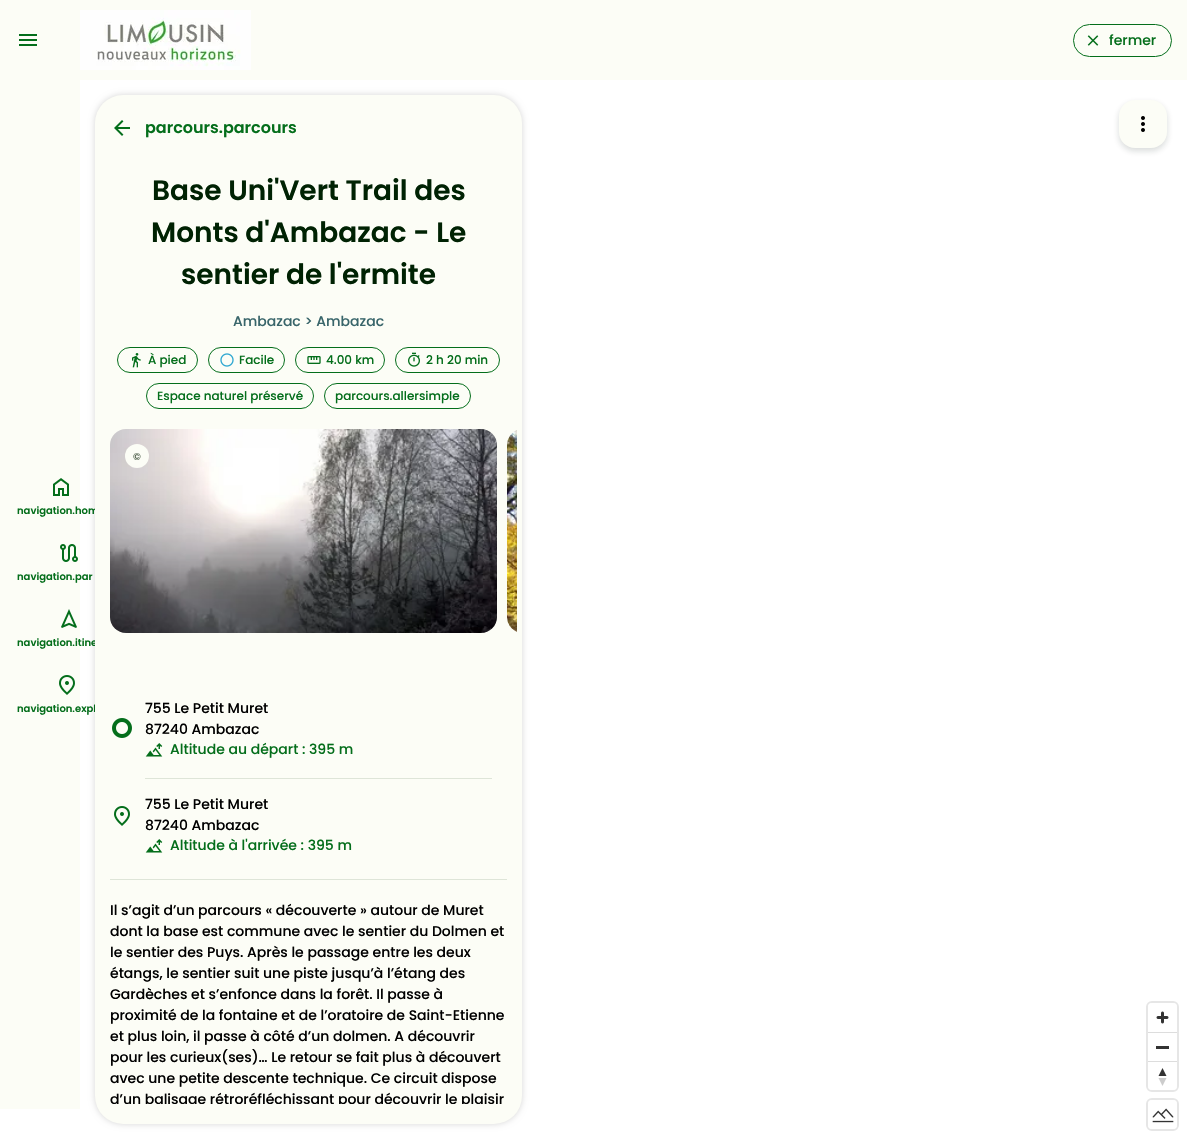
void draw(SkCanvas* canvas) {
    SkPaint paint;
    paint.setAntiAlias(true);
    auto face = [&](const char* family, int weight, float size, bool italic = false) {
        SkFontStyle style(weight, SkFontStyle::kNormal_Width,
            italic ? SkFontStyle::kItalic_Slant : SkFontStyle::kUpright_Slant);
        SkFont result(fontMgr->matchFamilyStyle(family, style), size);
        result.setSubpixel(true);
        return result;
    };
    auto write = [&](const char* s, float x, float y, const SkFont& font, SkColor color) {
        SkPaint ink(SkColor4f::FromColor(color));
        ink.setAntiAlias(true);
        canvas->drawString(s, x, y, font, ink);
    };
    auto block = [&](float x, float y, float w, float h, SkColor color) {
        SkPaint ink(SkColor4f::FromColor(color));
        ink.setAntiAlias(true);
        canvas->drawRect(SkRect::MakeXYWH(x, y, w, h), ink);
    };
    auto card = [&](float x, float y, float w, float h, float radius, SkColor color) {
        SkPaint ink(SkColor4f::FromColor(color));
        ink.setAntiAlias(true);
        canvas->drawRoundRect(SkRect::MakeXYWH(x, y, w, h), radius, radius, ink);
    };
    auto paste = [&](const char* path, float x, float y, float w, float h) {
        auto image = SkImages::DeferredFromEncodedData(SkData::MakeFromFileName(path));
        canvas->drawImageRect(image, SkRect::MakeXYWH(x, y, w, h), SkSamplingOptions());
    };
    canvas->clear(SK_ColorWHITE);
    block(0, 0, 1187, 80, SkColorSetRGB(252, 253, 246));
    paste("pic1.png", 19, 34, 18, 12);
    paste("pic2.png", 80, 10, 171, 60);
    paint.setStyle(SkPaint::kStroke_Style);
    paint.setStrokeWidth(1);
    paint.setColor(SkColorSetRGB(4, 110, 27));
    canvas->drawRoundRect(SkRect::MakeXYWH(1073.5f, 24.5f, 98, 32), 16, 16, paint);
    paste("pic3.png", 1087, 35, 12, 11);
    auto kFont1 = face("Poppins", 500, 14);
    write("fermer", 1109, 45, kFont1, SkColorSetRGB(4, 110, 27));
    block(0, 80, 80, 1029, SkColorSetRGB(252, 253, 246));
    paste("pic4.png", 53, 478, 16, 18);
    auto kFont2 = face("Poppins", 600, 10);
    write("navigation.hom", 17, 514, kFont2, SkColorSetRGB(4, 110, 27));
    paste("pic5.png", 60, 544, 18, 18);
    write("navigation.par", 17, 580, kFont2, SkColorSetRGB(4, 110, 27));
    paste("pic6.png", 61, 609, 16, 19);
    write("navigation.itine", 17, 646, kFont2, SkColorSetRGB(4, 110, 27));
    paste("pic7.png", 59, 675, 16, 20);
    write("navigation.expl", 17, 712, kFont2, SkColorSetRGB(4, 110, 27));
    paint.setStyle(SkPaint::kFill_Style);
    paint.setColor(SkColorSetARGB(41, 0, 0, 0));
    paint.setMaskFilter(SkMaskFilter::MakeBlur(kNormal_SkBlurStyle, 3));
    canvas->drawRoundRect(SkRect::MakeXYWH(95, 95, 427, 1029), 28, 28, paint);
    paint.setMaskFilter(nullptr);
    card(95, 95, 427, 1029, 28, SkColorSetRGB(252, 253, 246));
    paste("pic8.png", 114, 120, 16, 16);
    auto kFont3 = face("Poppins", 600, 16);
    write("parcours.parcours", 145, 133, kFont3, SkColorSetRGB(4, 110, 27));
    auto kFont4 = face("Poppins", 600, 28);
    write("Base Uni'Vert Trail des", 152, 200, kFont4, SkColorSetRGB(0, 34, 3));
    write("Monts d'Ambazac - Le", 151, 242, kFont4, SkColorSetRGB(0, 34, 3));
    write("sentier de l'ermite", 181, 284, kFont4, SkColorSetRGB(0, 34, 3));
    write("Ambazac > Ambazac", 233, 326, kFont1, SkColorSetRGB(56, 101, 106));
    paint.setStyle(SkPaint::kStroke_Style);
    paint.setColor(SkColorSetRGB(4, 110, 27));
    canvas->drawRoundRect(SkRect::MakeXYWH(117.5f, 347.5f, 80, 25), 12.5f, 12.5f, paint);
    paste("pic9.png", 132, 353, 9, 15);
    auto kFont5 = face("Poppins", 500, 12);
    write("À pied", 148, 364, kFont5, SkColorSetRGB(4, 110, 27));
    canvas->drawRoundRect(SkRect::MakeXYWH(208.5f, 347.5f, 76, 25), 12.5f, 12.5f, paint);
    paste("pic10.png", 220, 353, 14, 14);
    write("Facile", 239, 364, kFont5, SkColorSetRGB(4, 110, 27));
    canvas->drawRoundRect(SkRect::MakeXYWH(295.5f, 347.5f, 89, 25), 12.5f, 12.5f, paint);
    paste("pic11.png", 307, 356, 14, 8);
    write("4.00 km", 326, 364, kFont5, SkColorSetRGB(4, 110, 27));
    canvas->drawRoundRect(SkRect::MakeXYWH(395.5f, 347.5f, 104, 25), 12.5f, 12.5f, paint);
    paste("pic12.png", 408, 352, 12, 15);
    write("2 h 20 min", 426, 364, kFont5, SkColorSetRGB(4, 110, 27));
    canvas->drawRoundRect(SkRect::MakeXYWH(146.5f, 383.5f, 167, 25), 12.5f, 12.5f, paint);
    write("Espace naturel préservé", 157, 400, kFont5, SkColorSetRGB(4, 110, 27));
    canvas->drawRoundRect(SkRect::MakeXYWH(324.5f, 383.5f, 146, 25), 12.5f, 12.5f, paint);
    write("parcours.allersimple", 335, 400, kFont5, SkColorSetRGB(4, 110, 27));
    paste("pic13.png", 110, 429, 387, 204);
    paint.setStyle(SkPaint::kFill_Style);
    paint.setColor(SkColorSetRGB(252, 253, 246));
    canvas->drawCircle(137, 456, 12, paint);
    auto kFont6 = face("Poppins", 500, 10);
    write("©", 133, 460, kFont6, SkColorSetRGB(83, 99, 79));
    paste("pic14.png", 507, 430, 10, 202);
    block(110, 879, 397, 1, SkColorSetRGB(222, 229, 216));
    write("755 Le Petit Muret", 145, 713, kFont1, SK_ColorBLACK);
    paste("pic15.png", 112, 718, 20, 20);
    write("87240 Ambazac", 145, 734, kFont1, SK_ColorBLACK);
    paste("pic16.png", 145, 743, 18, 14);
    write("Altitude au départ : 395 m", 170, 754, kFont1, SkColorSetRGB(4, 110, 27));
    paste("pic17.png", 114, 806, 16, 20);
    block(145, 778, 347, 1, SkColorSetRGB(222, 229, 216));
    write("755 Le Petit Muret", 145, 809, kFont1, SK_ColorBLACK);
    write("87240 Ambazac", 145, 830, kFont1, SK_ColorBLACK);
    paste("pic16.png", 145, 839, 18, 14);
    write("Altitude à l'arrivée : 395 m", 170, 850, kFont1, SkColorSetRGB(4, 110, 27));
    write("Il s’agit d’un parcours « découverte » autour de Muret", 110, 915, kFont1, SK_ColorBLACK);
    write("dont la base est commune avec le sentier du Dolmen et", 110, 936, kFont1, SK_ColorBLACK);
    write("le sentier des Puys. Après le passage entre les deux", 110, 957, kFont1, SK_ColorBLACK);
    write("étangs, le sentier suit une piste jusqu’à l’étang des", 110, 978, kFont1, SK_ColorBLACK);
    write("Gardèches et s’enfonce dans la forêt. Il passe à", 110, 999, kFont1, SK_ColorBLACK);
    write("proximité de la fontaine et de l’oratoire de Saint-Etienne", 110, 1020, kFont1, SK_ColorBLACK);
    write("et plus loin, il passe à côté d’un dolmen. A découvrir", 110, 1041, kFont1, SK_ColorBLACK);
    write("pour les curieux(ses)… Le retour se fait plus à découvert", 110, 1062, kFont1, SK_ColorBLACK);
    write("avec une petite descente technique. Ce circuit dispose", 110, 1083, kFont1, SK_ColorBLACK);
    canvas->save();
    canvas->clipRect(SkRect::MakeXYWH(100, 115, 417, 989));
    write("d’un balisage rétroréfléchissant pour découvrir le plaisir", 110, 1104, kFont1, SK_ColorBLACK);
    canvas->restore();
    paint.setColor(SkColorSetARGB(41, 13, 31, 27));
    paint.setMaskFilter(SkMaskFilter::MakeBlur(kNormal_SkBlurStyle, 3));
    canvas->drawRoundRect(SkRect::MakeXYWH(1119, 103, 48, 48), 16, 16, paint);
    paint.setMaskFilter(nullptr);
    card(1119, 100, 48, 48, 16, SkColorSetRGB(252, 253, 246));
    paste("pic18.png", 1141, 116, 4, 16);
    paint.setStyle(SkPaint::kStroke_Style);
    paint.setStrokeWidth(2);
    paint.setColor(SkColorSetRGB(230, 230, 230));
    canvas->drawRoundRect(SkRect::MakeXYWH(1147, 1002, 31, 89), 5, 5, paint);
    card(1148, 1003, 29, 87, 4, SK_ColorWHITE);
    paste("pic19.png", 1156, 1011, 13, 13);
    block(1148, 1032, 29, 1, SkColorSetRGB(221, 221, 221));
    block(1156, 1046, 13, 3, SkColorSetRGB(51, 51, 51));
    block(1148, 1061, 29, 1, SkColorSetRGB(221, 221, 221));
    paste("pic20.png", 1158, 1068, 9, 18);
    canvas->drawRoundRect(SkRect::MakeXYWH(1147, 1099, 31, 31), 5, 5, paint);
    card(1148, 1100, 29, 29, 4, SK_ColorWHITE);
    paste("pic21.png", 1152, 1108, 22, 15);
}
